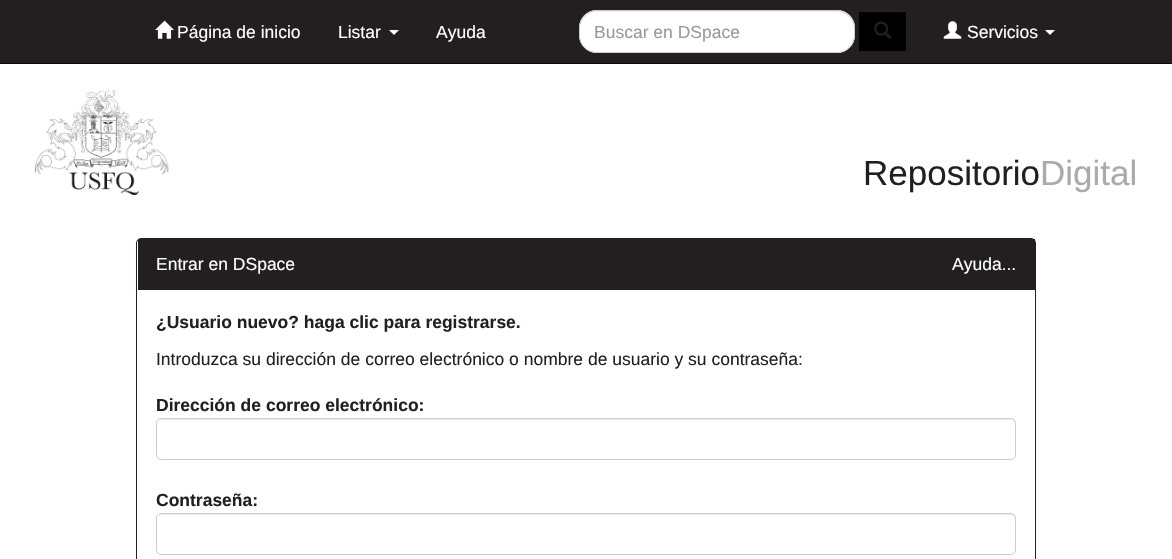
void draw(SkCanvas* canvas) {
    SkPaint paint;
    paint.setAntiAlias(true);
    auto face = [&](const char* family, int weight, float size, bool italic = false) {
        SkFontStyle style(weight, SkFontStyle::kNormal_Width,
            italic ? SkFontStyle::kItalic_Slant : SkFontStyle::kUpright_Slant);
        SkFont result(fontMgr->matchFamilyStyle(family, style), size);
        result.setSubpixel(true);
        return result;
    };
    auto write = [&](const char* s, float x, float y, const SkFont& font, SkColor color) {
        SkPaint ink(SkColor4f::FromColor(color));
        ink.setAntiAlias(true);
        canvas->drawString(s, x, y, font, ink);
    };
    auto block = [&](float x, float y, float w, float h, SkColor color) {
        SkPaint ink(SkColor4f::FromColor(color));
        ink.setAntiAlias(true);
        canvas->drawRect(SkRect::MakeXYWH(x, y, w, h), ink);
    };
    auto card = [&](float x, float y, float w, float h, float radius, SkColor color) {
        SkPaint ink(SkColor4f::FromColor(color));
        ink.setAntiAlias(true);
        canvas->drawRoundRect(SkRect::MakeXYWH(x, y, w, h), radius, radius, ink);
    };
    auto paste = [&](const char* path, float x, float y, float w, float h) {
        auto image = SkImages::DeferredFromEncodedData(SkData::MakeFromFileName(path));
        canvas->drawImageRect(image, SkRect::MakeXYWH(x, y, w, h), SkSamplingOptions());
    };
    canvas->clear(SK_ColorWHITE);
    block(0, 0, 1172, 63, SkColorSetRGB(35, 31, 32));
    block(0, 63, 1172, 1, SkColorSetRGB(8, 8, 8));
    paste("pic1.png", 155, 20, 19, 19);
    auto kFont1 = face("Liberation Sans", 400, 17.5f);
    write("Página de inicio", 177, 38, kFont1, SK_ColorWHITE);
    write("Listar", 338, 38, kFont1, SK_ColorWHITE);
    paint.setColor(SK_ColorWHITE);
    canvas->drawPath(SkPathBuilder().moveTo(389, 30).lineTo(399, 30).lineTo(394, 35).close().detach(), paint);
    write("Ayuda", 436, 38, kFont1, SK_ColorWHITE);
    card(579, 10, 276, 43, 18, SK_ColorWHITE);
    paint.setColor(SkColorSetRGB(236, 236, 236));
    canvas->drawPath(SkPathBuilder().moveTo(596, 12).lineTo(838, 12).cubicTo(846, 12, 854, 20, 854, 29).lineTo(854, 27).cubicTo(854, 18, 847, 11, 838, 11).lineTo(596, 11).cubicTo(587, 11, 580, 18, 580, 27).lineTo(580, 29).cubicTo(580, 20, 587, 12, 596, 12).close().detach(), paint);
    paint.setStyle(SkPaint::kStroke_Style);
    paint.setStrokeWidth(1);
    paint.setColor(SkColorSetRGB(204, 204, 204));
    canvas->drawRoundRect(SkRect::MakeXYWH(579.5f, 10.5f, 275, 42), 17.5f, 17.5f, paint);
    write("Buscar en DSpace", 594, 38, kFont1, SkColorSetRGB(153, 153, 153));
    block(859, 12, 47, 39, SK_ColorBLACK);
    block(859, 11, 47, 1, SkColorSetRGB(38, 38, 38));
    paste("pic2.png", 874, 21, 18, 18);
    paste("pic3.png", 943, 21, 19, 18);
    write("Servicios", 967, 38, kFont1, SK_ColorWHITE);
    paint.setStyle(SkPaint::kFill_Style);
    paint.setColor(SK_ColorWHITE);
    canvas->drawPath(SkPathBuilder().moveTo(1045, 30).lineTo(1055, 30).lineTo(1050, 35).close().detach(), paint);
    paste("pic4.png", 35, 90, 134, 105);
    auto kFont2 = face("Liberation Sans", 400, 35);
    write("Repositorio", 863, 185, kFont2, SkColorSetRGB(35, 31, 32));
    write("Digital", 1040, 185, kFont2, SkColorSetRGB(170, 170, 170));
    paint.setStyle(SkPaint::kStroke_Style);
    paint.setColor(SkColorSetRGB(35, 31, 32));
    canvas->drawRoundRect(SkRect::MakeXYWH(136.5f, 238.5f, 899, 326), 4.5f, 4.5f, paint);
    block(138, 239, 897, 51, SkColorSetRGB(35, 31, 32));
    write("Entrar en DSpace", 156, 270, kFont1, SK_ColorWHITE);
    write("Ayuda...", 952, 270, kFont1, SK_ColorWHITE);
    auto kFont3 = face("Liberation Sans", 700, 17.5f);
    write("¿Usuario nuevo? haga clic para registrarse.", 156, 328, kFont3, SkColorSetRGB(35, 31, 32));
    write("Introduzca su dirección de correo electrónico o nombre de usuario y su contraseña:", 156, 365, kFont1, SkColorSetRGB(35, 31, 32));
    write("Dirección de correo electrónico:", 156, 411, kFont3, SkColorSetRGB(35, 31, 32));
    paint.setStyle(SkPaint::kFill_Style);
    paint.setColor(SkColorSetRGB(236, 236, 236));
    canvas->drawPath(SkPathBuilder().moveTo(161, 420).lineTo(1011, 420).cubicTo(1013, 420, 1015, 422, 1015, 424).cubicTo(1015, 421, 1014, 419, 1011, 419).lineTo(162, 419).cubicTo(159, 419, 158, 421, 158, 424).cubicTo(158, 422, 159, 420, 161, 420).close().detach(), paint);
    paint.setStyle(SkPaint::kStroke_Style);
    paint.setColor(SkColorSetRGB(204, 204, 204));
    canvas->drawRoundRect(SkRect::MakeXYWH(156.5f, 418.5f, 859, 41), 4.5f, 4.5f, paint);
    write("Contraseña:", 156, 506, kFont3, SkColorSetRGB(35, 31, 32));
    paint.setStyle(SkPaint::kFill_Style);
    paint.setColor(SkColorSetRGB(236, 236, 236));
    canvas->drawPath(SkPathBuilder().moveTo(161, 515).lineTo(1011, 515).cubicTo(1013, 515, 1015, 517, 1015, 519).cubicTo(1015, 516, 1014, 514, 1011, 514).lineTo(162, 514).cubicTo(159, 514, 158, 516, 158, 519).cubicTo(158, 517, 159, 515, 161, 515).close().detach(), paint);
    paint.setStyle(SkPaint::kStroke_Style);
    paint.setColor(SkColorSetRGB(204, 204, 204));
    canvas->drawRoundRect(SkRect::MakeXYWH(156.5f, 513.5f, 859, 41), 4.5f, 4.5f, paint);
}
